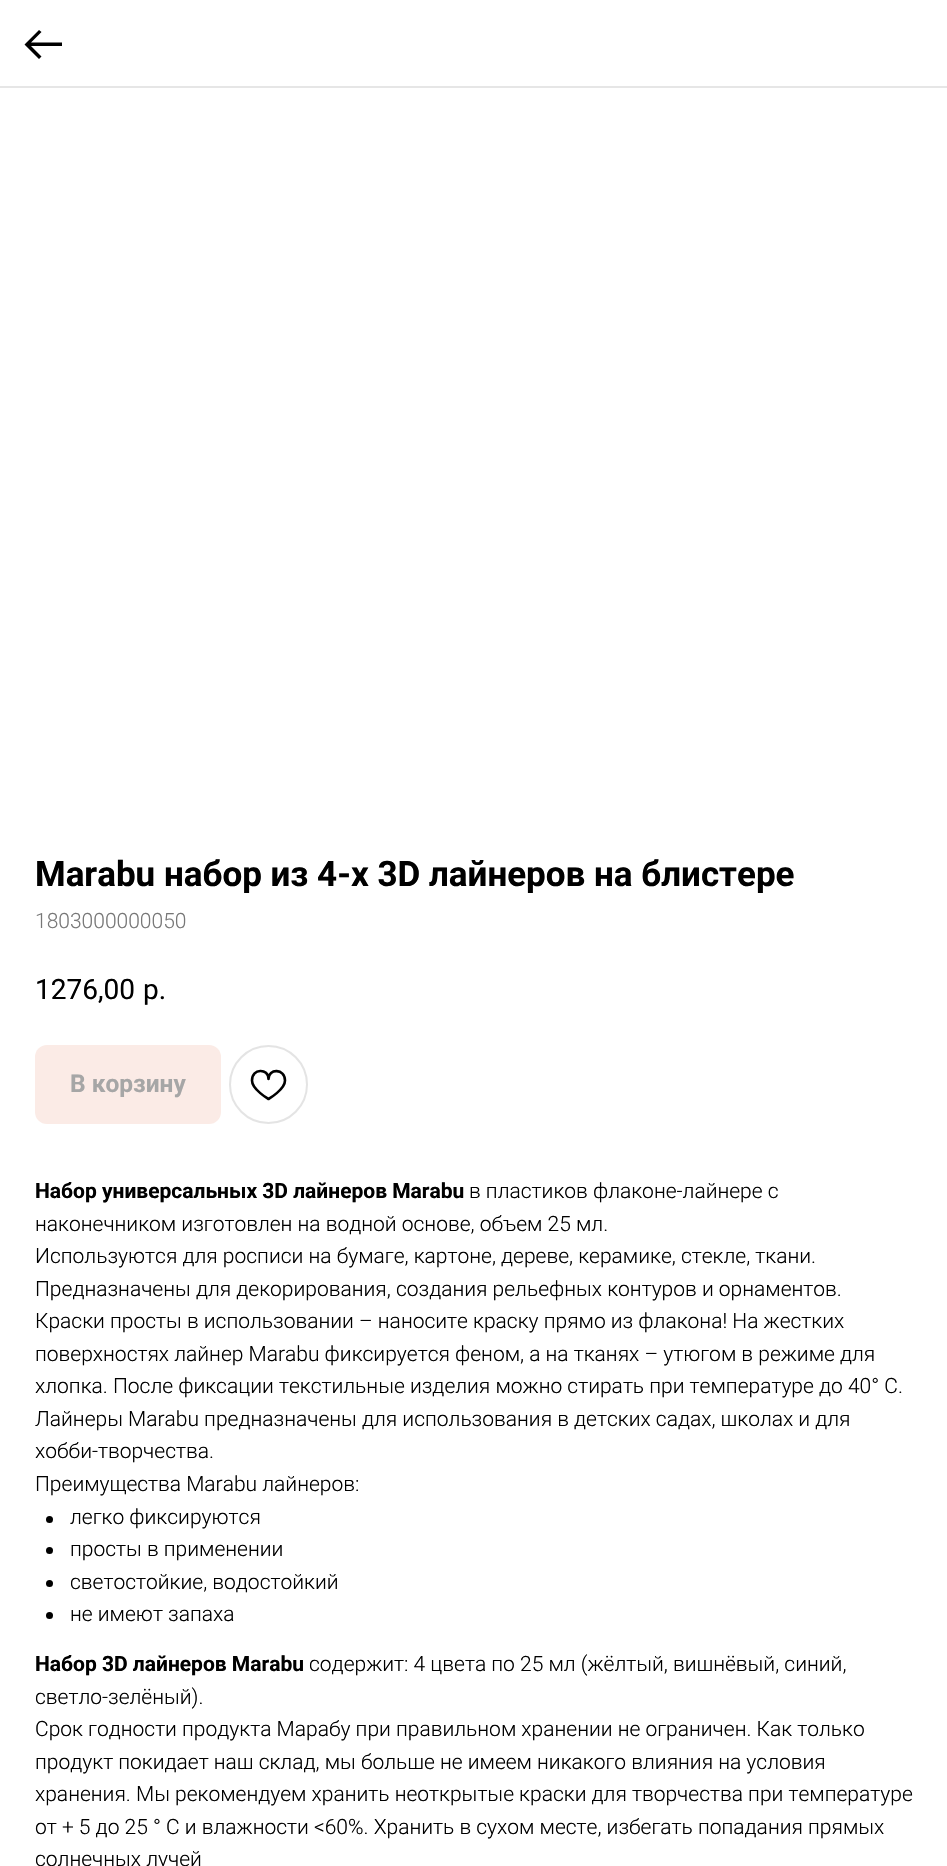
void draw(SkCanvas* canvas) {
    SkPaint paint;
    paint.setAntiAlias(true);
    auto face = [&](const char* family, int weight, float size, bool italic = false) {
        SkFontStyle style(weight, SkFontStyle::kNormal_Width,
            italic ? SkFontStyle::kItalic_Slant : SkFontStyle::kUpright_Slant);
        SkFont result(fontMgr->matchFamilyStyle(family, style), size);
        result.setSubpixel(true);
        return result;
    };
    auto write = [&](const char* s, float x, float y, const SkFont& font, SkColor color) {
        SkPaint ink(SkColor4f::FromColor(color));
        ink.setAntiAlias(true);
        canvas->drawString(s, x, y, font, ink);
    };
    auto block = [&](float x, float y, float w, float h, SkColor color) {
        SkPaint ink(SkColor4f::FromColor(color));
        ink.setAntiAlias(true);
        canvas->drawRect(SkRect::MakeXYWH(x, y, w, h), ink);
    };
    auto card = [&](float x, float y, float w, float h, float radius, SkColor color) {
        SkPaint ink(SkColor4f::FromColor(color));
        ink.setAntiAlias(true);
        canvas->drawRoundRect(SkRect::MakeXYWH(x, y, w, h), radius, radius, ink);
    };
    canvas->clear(SK_ColorWHITE);
    block(0, 86, 947, 2, SkColorSetRGB(230, 230, 230));
    paint.setColor(SK_ColorBLACK);
    canvas->drawPath(SkPathBuilder().moveTo(39, 30).lineTo(41.5f, 32).lineTo(31, 42.5f).lineTo(62, 42.5f).lineTo(62, 46).lineTo(31, 46).lineTo(41.5f, 56.5f).lineTo(39, 59).lineTo(24.5f, 44.5f).close().detach(), paint);
    auto kFont1 = face("Roboto", 700, 35);
    write("Marabu набор из 4-х 3D лайнеров на блистере", 35, 886, kFont1, SK_ColorBLACK);
    auto kFont2 = face("Roboto", 300, 21);
    write("1803000000050", 35, 928, kFont2, SkColorSetRGB(119, 119, 119));
    auto kFont3 = face("Roboto", 400, 28);
    write("1276,00", 35, 999, kFont3, SK_ColorBLACK);
    write("р.", 143, 999, kFont3, SK_ColorBLACK);
    card(35, 1045, 186, 79, 12, SkColorSetRGB(251, 235, 230));
    auto kFont4 = face("Roboto", 700, 24.5f);
    write("В корзину", 70, 1092, kFont4, SkColorSetRGB(166, 166, 166));
    paint.setStyle(SkPaint::kStroke_Style);
    paint.setStrokeWidth(2);
    paint.setColor(SkColorSetRGB(228, 228, 228));
    canvas->drawCircle(268.5f, 1084.5f, 38.5f, paint);
    paint.setStrokeWidth(2.6f);
    paint.setStrokeJoin(SkPaint::kRound_Join);
    paint.setColor(SK_ColorBLACK);
    canvas->drawPath(SkPathBuilder().moveTo(285, 1080.5f).cubicTo(285, 1089.5f, 268.5f, 1099, 268.5f, 1099).cubicTo(268.5f, 1099, 252, 1089.5f, 252, 1080.5f).cubicTo(252, 1068, 268.5f, 1068, 268.5f, 1079).cubicTo(268.5f, 1068, 285, 1068.5f, 285, 1080.5f).close().detach(), paint);
    auto kFont5 = face("Roboto", 700, 21);
    write("Набор универсальных 3D лайнеров Marabu", 35, 1198, kFont5, SK_ColorBLACK);
    write("в пластиков флаконе-лайнере с", 469, 1198, kFont2, SK_ColorBLACK);
    write("наконечником изготовлен на водной основе, объем 25 мл.", 35, 1231, kFont2, SK_ColorBLACK);
    write("Используются для росписи на бумаге, картоне, дереве, керамике, стекле, ткани.", 35, 1263, kFont2, SK_ColorBLACK);
    write("Предназначены для декорирования, создания рельефных контуров и орнаментов.", 35, 1296, kFont2, SK_ColorBLACK);
    write("Краски просты в использовании – наносите краску прямо из флакона! На жестких", 35, 1328, kFont2, SK_ColorBLACK);
    write("поверхностях лайнер Marabu фиксируется феном, а на тканях – утюгом в режиме для", 35, 1361, kFont2, SK_ColorBLACK);
    write("хлопка. После фиксации текстильные изделия можно стирать при температуре до 40° С.", 35, 1393, kFont2, SK_ColorBLACK);
    write("Лайнеры Marabu предназначены для использования в детских садах, школах и для", 35, 1426, kFont2, SK_ColorBLACK);
    write("хобби-творчества.", 35, 1458, kFont2, SK_ColorBLACK);
    write("Преимущества Marabu лайнеров:", 35, 1491, kFont2, SK_ColorBLACK);
    paint.setStyle(SkPaint::kFill_Style);
    canvas->drawCircle(49.5f, 1519.5f, 3.5f, paint);
    write("легко фиксируются", 70, 1524, kFont2, SK_ColorBLACK);
    canvas->drawCircle(49.5f, 1550.5f, 3.5f, paint);
    write("просты в применении", 70, 1556, kFont2, SK_ColorBLACK);
    canvas->drawCircle(49.5f, 1583.5f, 3.5f, paint);
    write("светостойкие, водостойкий", 70, 1589, kFont2, SK_ColorBLACK);
    canvas->drawCircle(49.5f, 1615.5f, 3.5f, paint);
    write("не имеют запаха", 70, 1621, kFont2, SK_ColorBLACK);
    write("Набор 3D лайнеров Marabu", 35, 1671, kFont5, SK_ColorBLACK);
    write("содержит: 4 цвета по 25 мл (жёлтый, вишнёвый, синий,", 309, 1671, kFont2, SK_ColorBLACK);
    write("светло-зелёный).", 35, 1704, kFont2, SK_ColorBLACK);
    write("Срок годности продукта Марабу при правильном хранении не ограничен. Как только", 35, 1736, kFont2, SK_ColorBLACK);
    write("продукт покидает наш склад, мы больше не имеем никакого влияния на условия", 35, 1769, kFont2, SK_ColorBLACK);
    write("хранения. Мы рекомендуем хранить неоткрытые краски для творчества при температуре", 35, 1801, kFont2, SK_ColorBLACK);
    write("от + 5 до 25 ° C и влажности <60%. Хранить в сухом месте, избегать попадания прямых", 35, 1834, kFont2, SK_ColorBLACK);
    write("солнечных лучей", 35, 1866, kFont2, SK_ColorBLACK);
}
